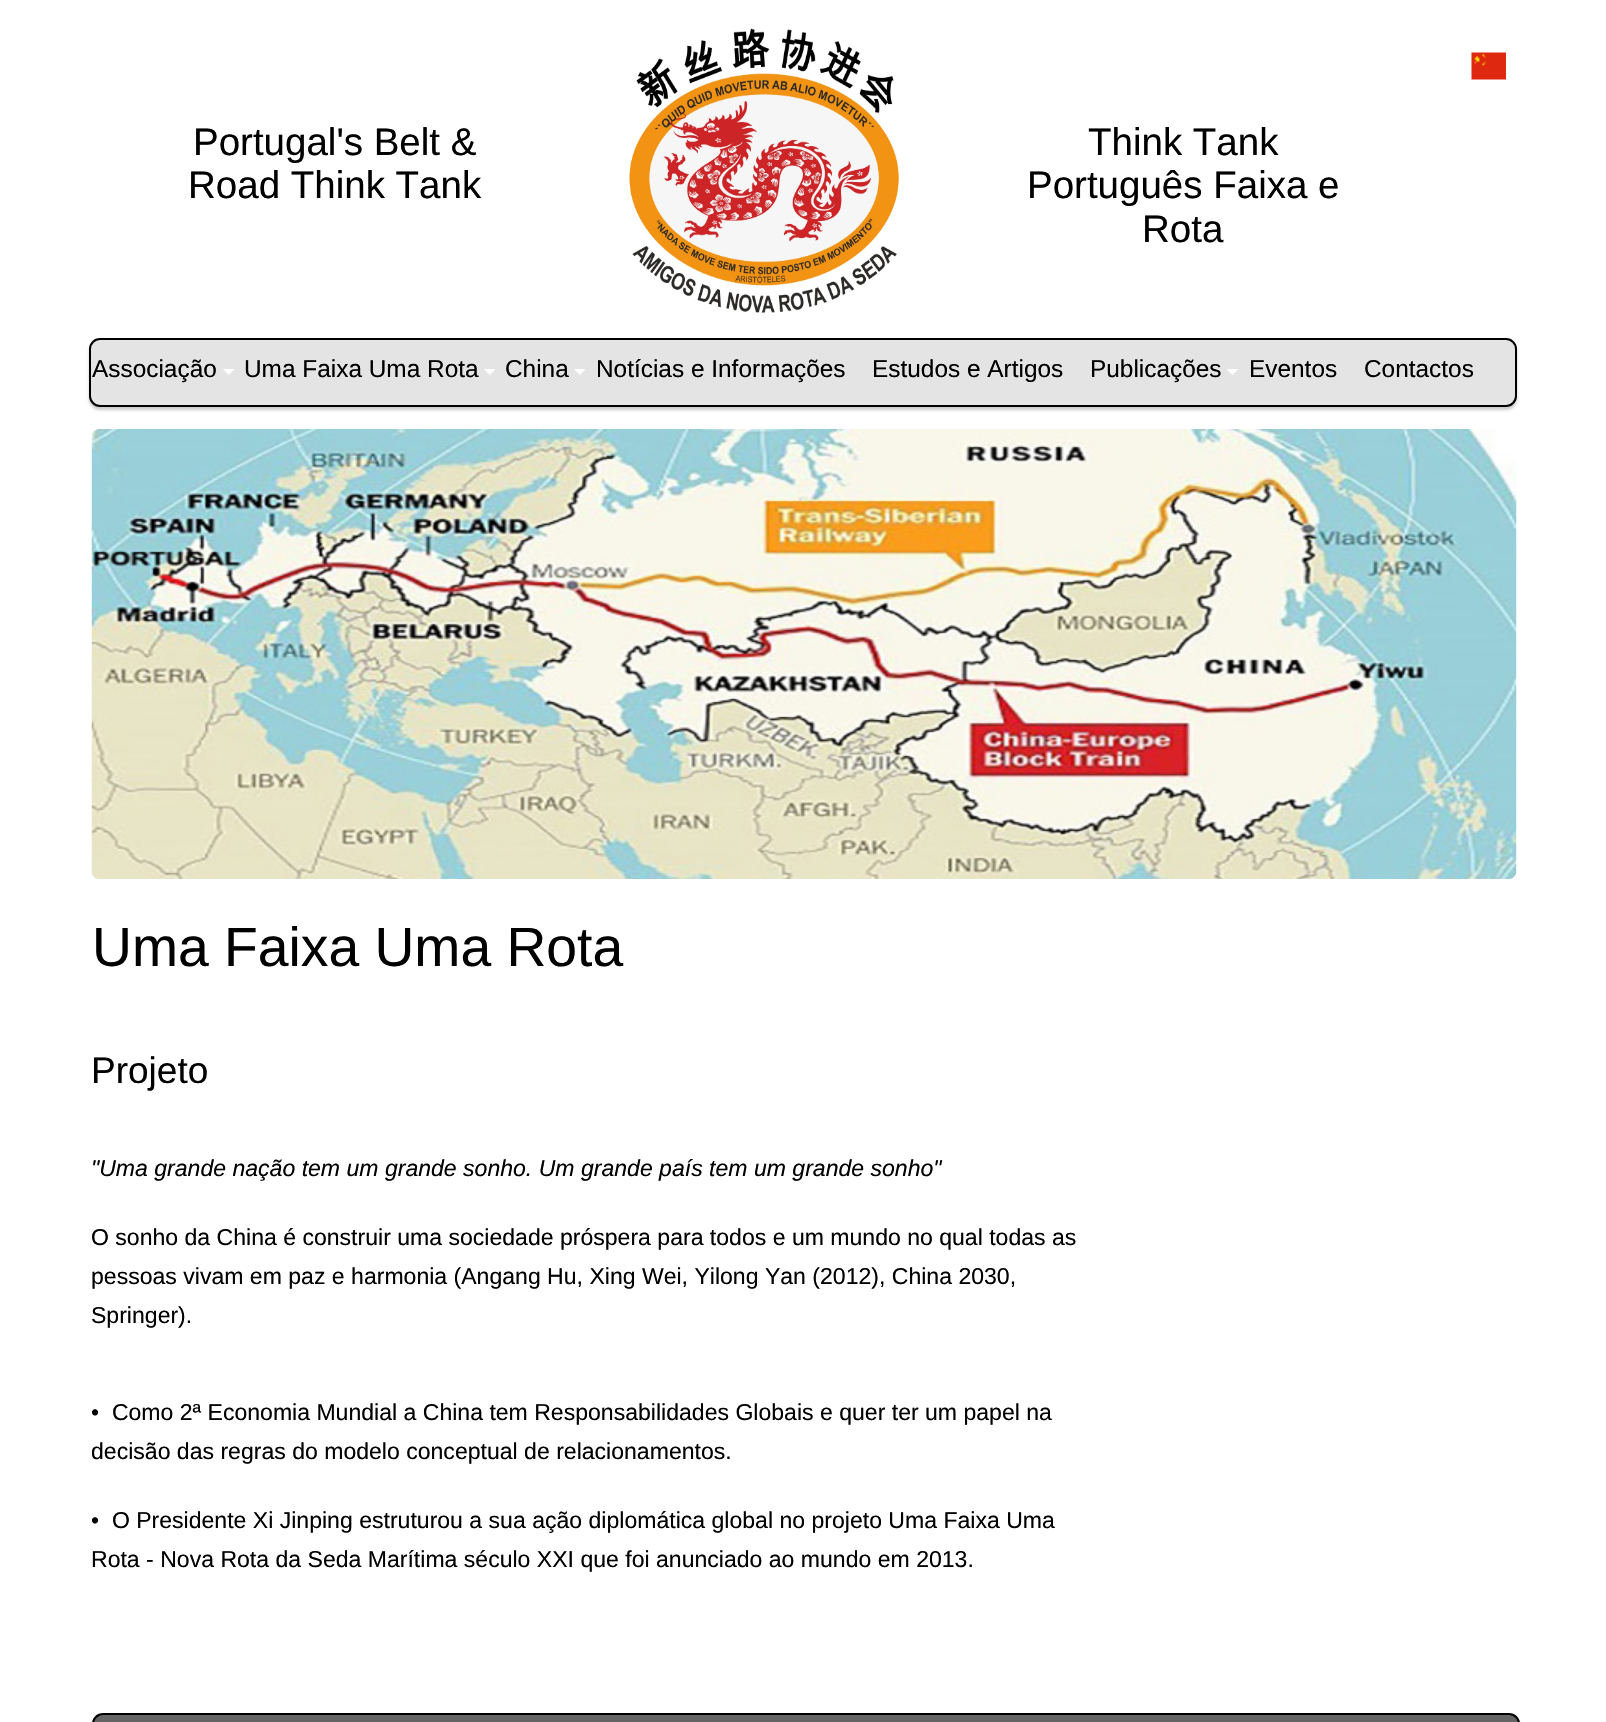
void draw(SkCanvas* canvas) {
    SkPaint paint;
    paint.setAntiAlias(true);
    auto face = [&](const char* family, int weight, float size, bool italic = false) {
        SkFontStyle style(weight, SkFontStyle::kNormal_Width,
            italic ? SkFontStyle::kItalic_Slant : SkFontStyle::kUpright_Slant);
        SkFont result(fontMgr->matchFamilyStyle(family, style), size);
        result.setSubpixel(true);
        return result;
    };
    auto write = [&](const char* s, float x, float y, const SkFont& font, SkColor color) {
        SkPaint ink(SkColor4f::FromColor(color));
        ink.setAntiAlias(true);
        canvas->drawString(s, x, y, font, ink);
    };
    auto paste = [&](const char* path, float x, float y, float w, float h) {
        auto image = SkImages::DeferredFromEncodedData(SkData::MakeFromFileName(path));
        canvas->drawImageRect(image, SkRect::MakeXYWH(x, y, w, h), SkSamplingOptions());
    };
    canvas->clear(SK_ColorWHITE);
    paste("pic1.png", 629, 28, 270, 285);
    paste("pic2.png", 1471, 52, 35, 28);
    auto kFont1 = face("Liberation Sans", 400, 38.5f);
    write("Portugal's Belt &", 193, 155, kFont1, SK_ColorBLACK);
    write("Road Think Tank", 188, 198, kFont1, SK_ColorBLACK);
    write("Think Tank", 1088, 155, kFont1, SK_ColorBLACK);
    write("Português Faixa e", 1027, 198, kFont1, SK_ColorBLACK);
    write("Rota", 1142, 242, kFont1, SK_ColorBLACK);
    paint.setColor(SkColorSetARGB(51, 0, 0, 0));
    paint.setMaskFilter(SkMaskFilter::MakeBlur(kNormal_SkBlurStyle, 1.5f));
    canvas->drawRoundRect(SkRect::MakeXYWH(89, 341, 1428, 69), 11, 11, paint);
    paint.setMaskFilter(nullptr);
    paint.setColor(SkColorSetRGB(228, 228, 228));
    canvas->drawRoundRect(SkRect::MakeXYWH(90, 339, 1426, 67), 10, 10, paint);
    paint.setStyle(SkPaint::kStroke_Style);
    paint.setStrokeWidth(2);
    paint.setColor(SK_ColorBLACK);
    canvas->drawRoundRect(SkRect::MakeXYWH(90, 339, 1426, 67), 10, 10, paint);
    auto kFont2 = face("Liberation Sans", 400, 24.4f);
    write("Associação", 92, 377, kFont2, SK_ColorBLACK);
    paste("pic3.png", 223, 369, 11, 7);
    write("Uma Faixa Uma Rota", 244, 377, kFont2, SK_ColorBLACK);
    paste("pic3.png", 484, 369, 11, 7);
    write("China", 505, 377, kFont2, SK_ColorBLACK);
    paste("pic4.png", 574, 369, 11, 7);
    write("Notícias e Informações", 596, 377, kFont2, SK_ColorBLACK);
    write("Estudos e Artigos", 872, 377, kFont2, SK_ColorBLACK);
    write("Publicações", 1090, 377, kFont2, SK_ColorBLACK);
    paste("pic5.png", 1227, 369, 11, 7);
    write("Eventos", 1249, 377, kFont2, SK_ColorBLACK);
    write("Contactos", 1364, 377, kFont2, SK_ColorBLACK);
    paste("pic6.png", 91, 429, 1426, 450);
    auto kFont3 = face("Liberation Sans", 400, 55.25f);
    write("Uma Faixa Uma Rota", 92, 966, kFont3, SK_ColorBLACK);
    auto kFont4 = face("Liberation Sans", 400, 37);
    write("Projeto", 91, 1083, kFont4, SK_ColorBLACK);
    auto kFont5 = face("Liberation Sans", 400, 23.05f, true);
    write("\"Uma grande nação tem um grande sonho. Um grande país tem um grande sonho\"", 91, 1176, kFont5, SK_ColorBLACK);
    auto kFont6 = face("Liberation Sans", 400, 23.05f);
    write("O sonho da China é construir uma sociedade próspera para todos e um mundo no qual todas as", 91, 1245, kFont6, SK_ColorBLACK);
    write("pessoas vivam em paz e harmonia (Angang Hu, Xing Wei, Yilong Yan (2012), China 2030,", 91, 1284, kFont6, SK_ColorBLACK);
    write("Springer).", 91, 1323, kFont6, SK_ColorBLACK);
    canvas->save();
    canvas->clipRect(SkRect::MakeXYWH(92, 407, 1425, 1306));
    write("•  Como 2ª Economia Mundial a China tem Responsabilidades Globais e quer ter um papel na", 91, 1420, kFont6, SK_ColorBLACK);
    write("decisão das regras do modelo conceptual de relacionamentos.", 91, 1459, kFont6, SK_ColorBLACK);
    write("•  O Presidente Xi Jinping estruturou a sua ação diplomática global no projeto Uma Faixa Uma", 91, 1528, kFont6, SK_ColorBLACK);
    canvas->restore();
    write("Rota - Nova Rota da Seda Marítima século XXI que foi anunciado ao mundo em 2013.", 91, 1567, kFont6, SK_ColorBLACK);
    paint.setStyle(SkPaint::kFill_Style);
    paint.setColor(SkColorSetARGB(51, 0, 0, 0));
    paint.setMaskFilter(SkMaskFilter::MakeBlur(kNormal_SkBlurStyle, 1.5f));
    canvas->drawRoundRect(SkRect::MakeXYWH(92, 1716, 1428, 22), 11, 11, paint);
    paint.setMaskFilter(nullptr);
    canvas->save();
    canvas->clipPath(SkPathBuilder().moveTo(103, 1713).lineTo(1509, 1713).cubicTo(1515, 1713, 1520, 1718, 1520, 1724).lineTo(1520, 1788).cubicTo(1520, 1794, 1515, 1799, 1509, 1799).lineTo(103, 1799).cubicTo(97, 1799, 92, 1794, 92, 1788).lineTo(92, 1724).cubicTo(92, 1718, 97, 1713, 103, 1713).close().detach(), true);
    {
        const SkColor colors[] = {SkColorSetRGB(102, 102, 102), SkColorSetRGB(68, 68, 68)};
        const float stops[] = {0, 1};
        const SkPoint ends[] = {{806, 1715}, {806, 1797}};
        paint.setShader(SkGradientShader::MakeLinear(ends, colors, stops, 2, SkTileMode::kClamp));
        paint.setAlpha(255);
    }
    canvas->drawRect(SkRect::MakeXYWH(92, 1715, 1428, 7), paint);
    canvas->restore();
    paint.setStyle(SkPaint::kStroke_Style);
    paint.setShader(nullptr);
    paint.setColor(SK_ColorBLACK);
    canvas->drawRoundRect(SkRect::MakeXYWH(93, 1714, 1426, 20), 10, 10, paint);
}
